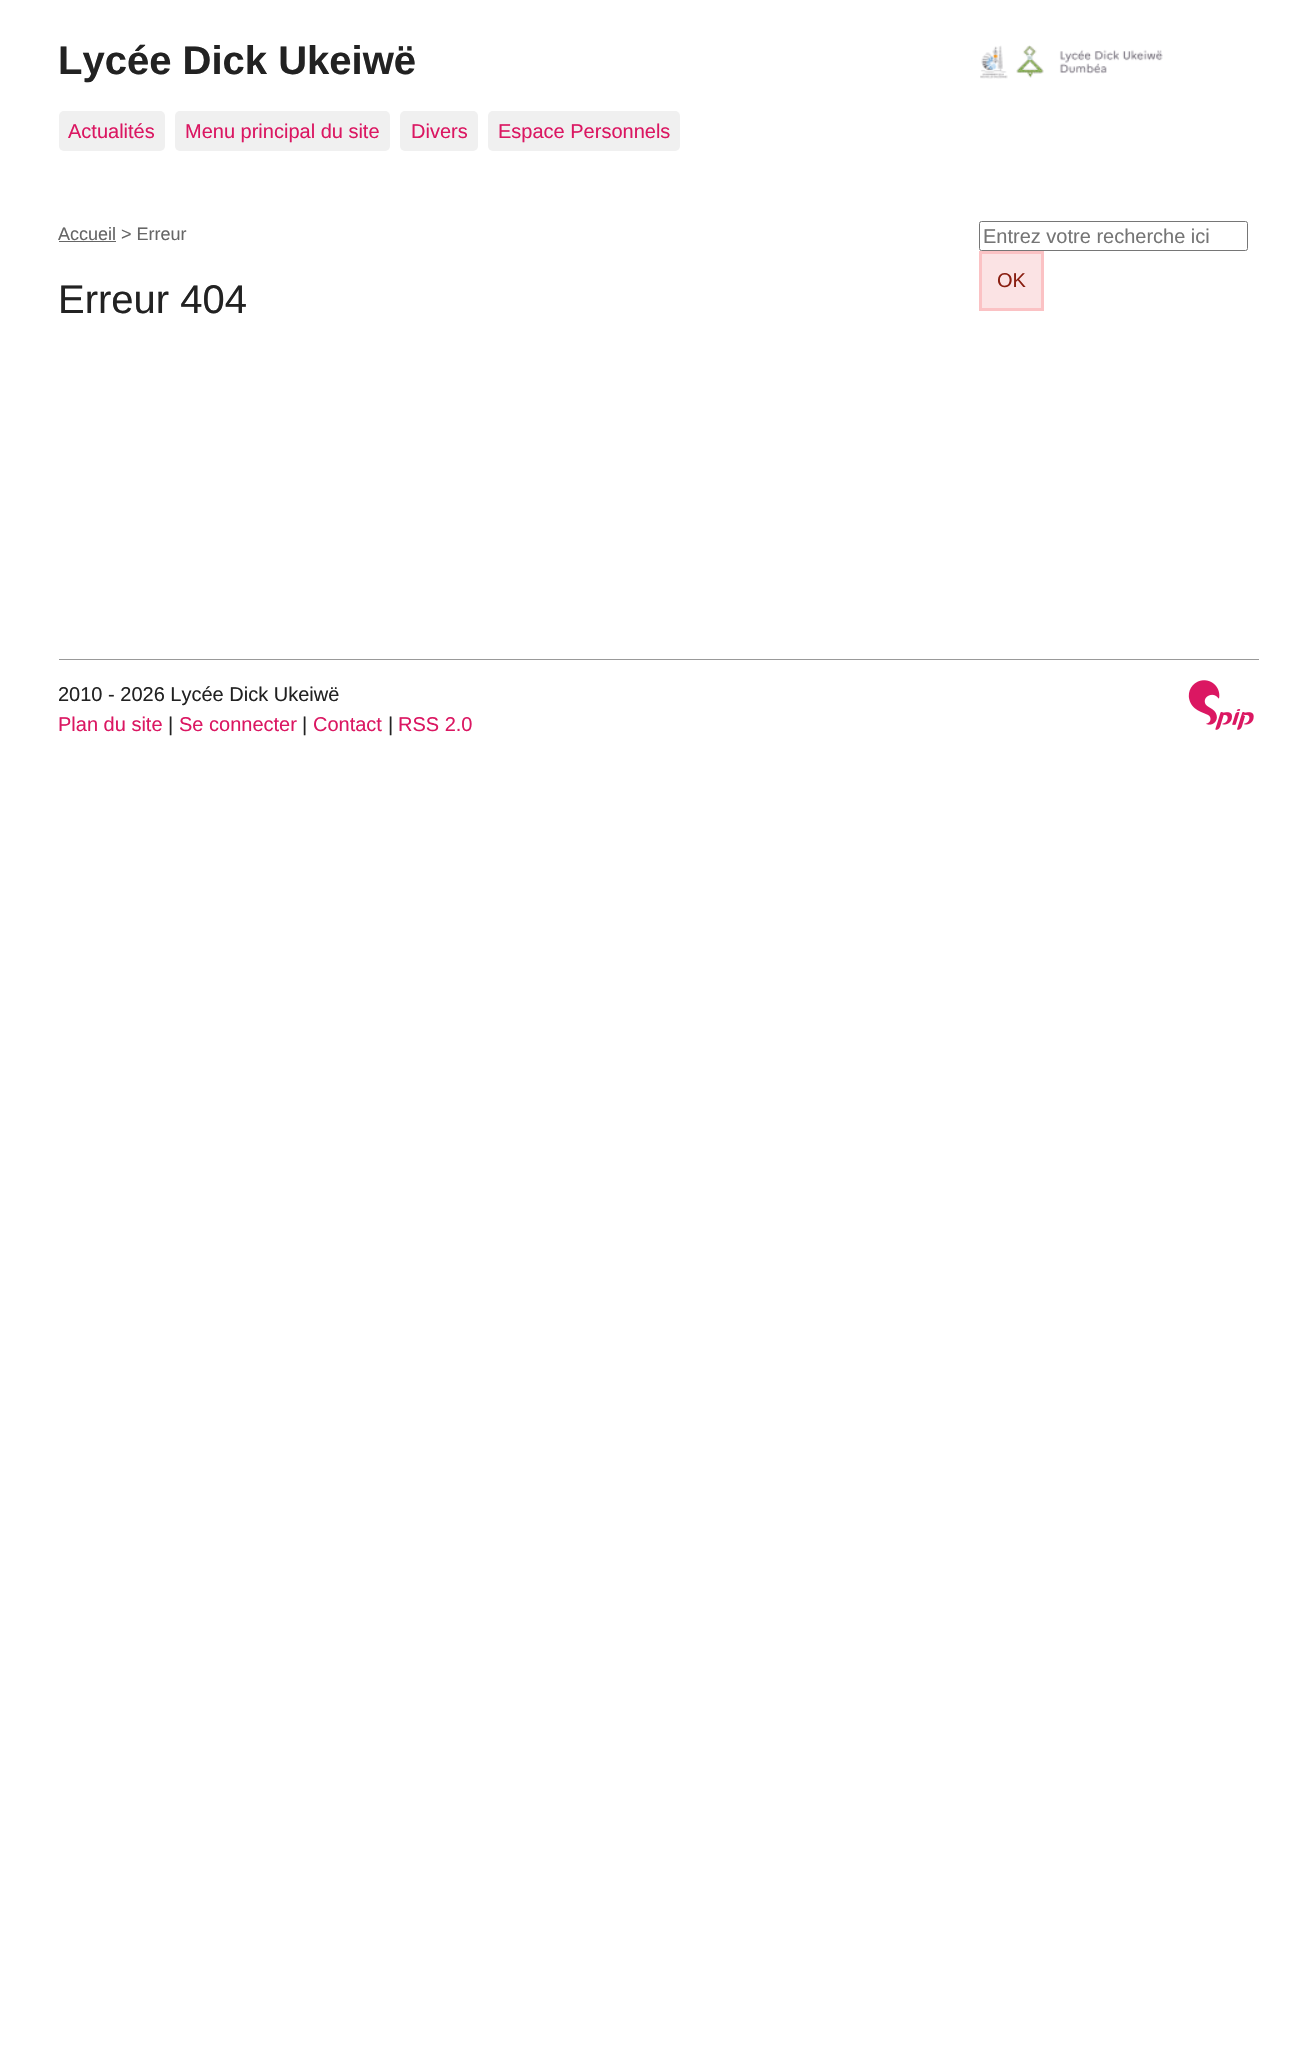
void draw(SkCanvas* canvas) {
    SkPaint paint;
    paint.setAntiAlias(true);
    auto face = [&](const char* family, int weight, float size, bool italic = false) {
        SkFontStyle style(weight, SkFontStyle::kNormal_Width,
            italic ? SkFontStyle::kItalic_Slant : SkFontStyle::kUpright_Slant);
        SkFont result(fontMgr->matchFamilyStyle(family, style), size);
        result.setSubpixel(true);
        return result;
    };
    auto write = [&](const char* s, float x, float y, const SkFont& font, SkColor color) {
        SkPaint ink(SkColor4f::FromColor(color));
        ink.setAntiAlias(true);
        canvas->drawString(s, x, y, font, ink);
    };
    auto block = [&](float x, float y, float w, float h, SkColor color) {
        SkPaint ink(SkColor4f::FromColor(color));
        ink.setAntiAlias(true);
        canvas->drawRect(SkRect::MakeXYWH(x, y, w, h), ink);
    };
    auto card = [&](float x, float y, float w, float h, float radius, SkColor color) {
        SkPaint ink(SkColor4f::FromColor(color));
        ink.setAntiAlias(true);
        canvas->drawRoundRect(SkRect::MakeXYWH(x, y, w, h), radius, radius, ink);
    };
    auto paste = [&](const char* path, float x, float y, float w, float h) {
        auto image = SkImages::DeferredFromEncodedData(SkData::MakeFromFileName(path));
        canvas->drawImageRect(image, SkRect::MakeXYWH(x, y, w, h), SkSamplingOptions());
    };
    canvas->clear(SK_ColorWHITE);
    auto kFont1 = face("Liberation Sans", 700, 40);
    write("Lycée Dick Ukeiwë", 58, 74, kFont1, SkColorSetRGB(34, 34, 34));
    paste("pic1.png", 980, 45, 183, 34);
    card(59, 111, 106, 40, 5, SkColorSetRGB(240, 240, 240));
    auto kFont2 = face("Liberation Sans", 400, 20);
    write("Actualités", 68, 138, kFont2, SkColorSetRGB(219, 23, 98));
    card(175, 111, 215, 40, 5, SkColorSetRGB(240, 240, 240));
    write("Menu principal du site", 185, 138, kFont2, SkColorSetRGB(219, 23, 98));
    card(400, 111, 78, 40, 5, SkColorSetRGB(240, 240, 240));
    write("Divers", 411, 138, kFont2, SkColorSetRGB(219, 23, 98));
    card(488, 111, 192, 40, 5, SkColorSetRGB(240, 240, 240));
    write("Espace Personnels", 498, 138, kFont2, SkColorSetRGB(219, 23, 98));
    auto kFont3 = face("Liberation Sans", 400, 18);
    write("Accueil > Erreur", 58, 240, kFont3, SkColorSetRGB(102, 102, 102));
    block(59, 241, 57, 1, SkColorSetRGB(102, 102, 102));
    auto kFont4 = face("Liberation Sans", 400, 40);
    write("Erreur 404", 58, 313, kFont4, SkColorSetRGB(34, 34, 34));
    paint.setStyle(SkPaint::kStroke_Style);
    paint.setStrokeWidth(1);
    paint.setColor(SkColorSetRGB(118, 118, 118));
    canvas->drawRoundRect(SkRect::MakeXYWH(979.5f, 221.5f, 268, 29), 2, 2, paint);
    write("Entrez votre recherche ici", 983, 243, kFont2, SkColorSetRGB(117, 117, 117));
    paint.setStyle(SkPaint::kFill_Style);
    paint.setColor(SkColorSetRGB(251, 227, 228));
    canvas->drawRect(SkRect::MakeXYWH(980.5f, 252.5f, 62, 57), paint);
    paint.setStyle(SkPaint::kStroke_Style);
    paint.setStrokeWidth(3);
    paint.setColor(SkColorSetRGB(251, 194, 196));
    canvas->drawRect(SkRect::MakeXYWH(980.5f, 252.5f, 62, 57), paint);
    write("OK", 997, 287, kFont2, SkColorSetRGB(138, 31, 17));
    block(59, 659, 1200, 1, SkColorSetRGB(153, 153, 153));
    write("2010 - 2026 Lycée Dick Ukeiwë", 58, 701, kFont2, SkColorSetRGB(34, 34, 34));
    write("Plan du site", 58, 731, kFont2, SkColorSetRGB(219, 23, 98));
    write("|", 168, 731, kFont2, SkColorSetRGB(34, 34, 34));
    write("Se connecter", 179, 731, kFont2, SkColorSetRGB(219, 23, 98));
    write("|", 302, 731, kFont2, SkColorSetRGB(34, 34, 34));
    write("Contact", 313, 731, kFont2, SkColorSetRGB(219, 23, 98));
    write("|", 388, 731, kFont2, SkColorSetRGB(34, 34, 34));
    write("RSS 2.0", 398, 731, kFont2, SkColorSetRGB(219, 23, 98));
    paste("pic2.png", 1188, 680, 66, 50);
}
